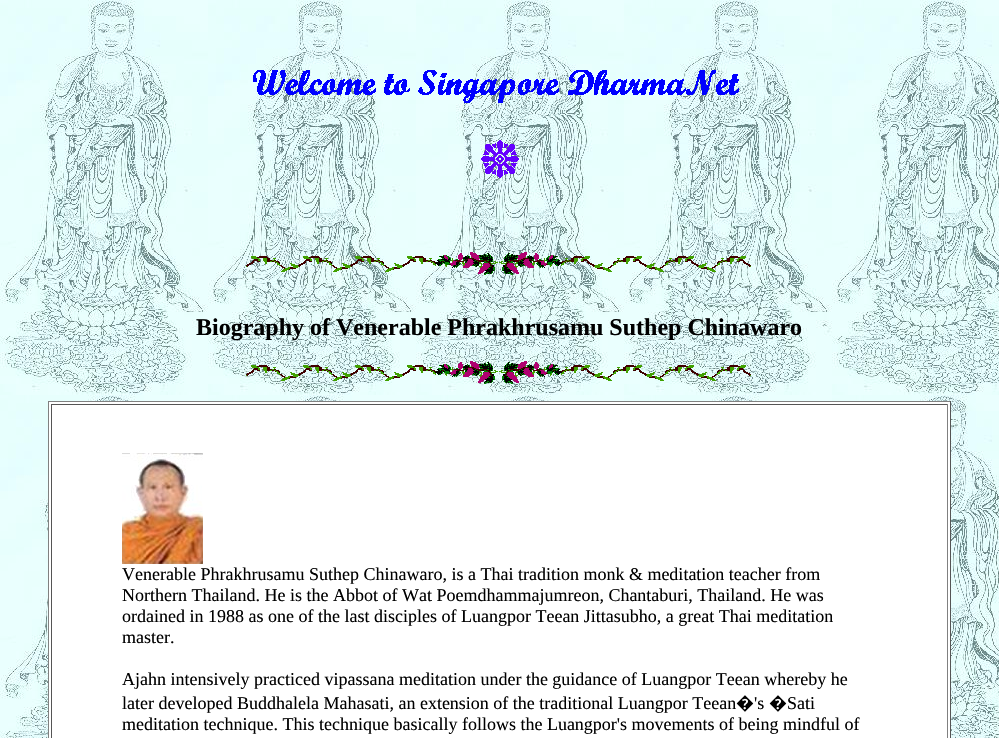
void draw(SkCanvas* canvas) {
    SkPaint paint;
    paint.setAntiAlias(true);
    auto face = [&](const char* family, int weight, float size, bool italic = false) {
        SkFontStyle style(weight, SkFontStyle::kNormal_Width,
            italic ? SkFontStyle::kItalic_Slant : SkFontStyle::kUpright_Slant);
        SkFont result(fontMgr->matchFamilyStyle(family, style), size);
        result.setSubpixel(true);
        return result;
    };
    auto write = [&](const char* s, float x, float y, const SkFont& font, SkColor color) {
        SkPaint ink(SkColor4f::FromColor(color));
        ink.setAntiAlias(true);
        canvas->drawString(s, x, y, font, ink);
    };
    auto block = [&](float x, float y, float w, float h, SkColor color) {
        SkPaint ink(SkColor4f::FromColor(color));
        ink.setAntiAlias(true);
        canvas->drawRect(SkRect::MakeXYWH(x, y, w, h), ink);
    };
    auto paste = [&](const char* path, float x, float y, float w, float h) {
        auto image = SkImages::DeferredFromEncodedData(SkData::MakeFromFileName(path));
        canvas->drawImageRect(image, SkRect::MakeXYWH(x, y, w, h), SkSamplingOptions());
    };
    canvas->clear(SK_ColorWHITE);
    paste("pic1.png", 0, 0, 999, 738);
    paste("pic2.png", 253, 70, 486, 33);
    paste("pic3.png", 481, 140, 38, 38);
    paste("pic4.png", 246, 252, 505, 23);
    auto kFont1 = face("Liberation Serif", 700, 24);
    write("Biography of Venerable Phrakhrusamu Suthep Chinawaro", 196, 335, kFont1, SK_ColorBLACK);
    paste("pic5.png", 246, 361, 505, 23);
    block(49, 402, 901, 336, SK_ColorWHITE);
    block(48, 401, 903, 1, SkColorSetRGB(128, 128, 128));
    block(950, 401, 1, 337, SkColorSetRGB(85, 85, 85));
    block(48, 401, 1, 337, SkColorSetRGB(128, 128, 128));
    block(51, 404, 897, 1, SkColorSetRGB(85, 85, 85));
    block(947, 404, 1, 334, SkColorSetRGB(128, 128, 128));
    block(51, 404, 1, 334, SkColorSetRGB(85, 85, 85));
    paste("pic6.png", 122, 453, 81, 111);
    auto kFont2 = face("Liberation Serif", 400, 18);
    write("Venerable Phrakhrusamu Suthep Chinawaro, is a Thai tradition monk & meditation teacher from", 122, 580, kFont2, SK_ColorBLACK);
    write("Northern Thailand. He is the Abbot of Wat Poemdhammajumreon, Chantaburi, Thailand. He was", 122, 601, kFont2, SK_ColorBLACK);
    write("ordained in 1988 as one of the last disciples of Luangpor Teean Jittasubho, a great Thai meditation", 122, 622, kFont2, SK_ColorBLACK);
    write("master.", 122, 643, kFont2, SK_ColorBLACK);
    write("Ajahn intensively practiced vipassana meditation under the guidance of Luangpor Teean whereby he", 122, 685, kFont2, SK_ColorBLACK);
    write("later developed Buddhalela Mahasati, an extension of the traditional Luangpor Teean", 122, 709, kFont2, SK_ColorBLACK);
    auto kFont3 = face("Noto Sans", 400, 18);
    write("�", 736, 709, kFont3, SK_ColorBLACK);
    write("'s", 754, 709, kFont2, SK_ColorBLACK);
    write("�", 769, 709, kFont3, SK_ColorBLACK);
    write("Sati", 787, 709, kFont2, SK_ColorBLACK);
    write("meditation technique. This technique basically follows the Luangpor's movements of being mindful of", 122, 730, kFont2, SK_ColorBLACK);
}
